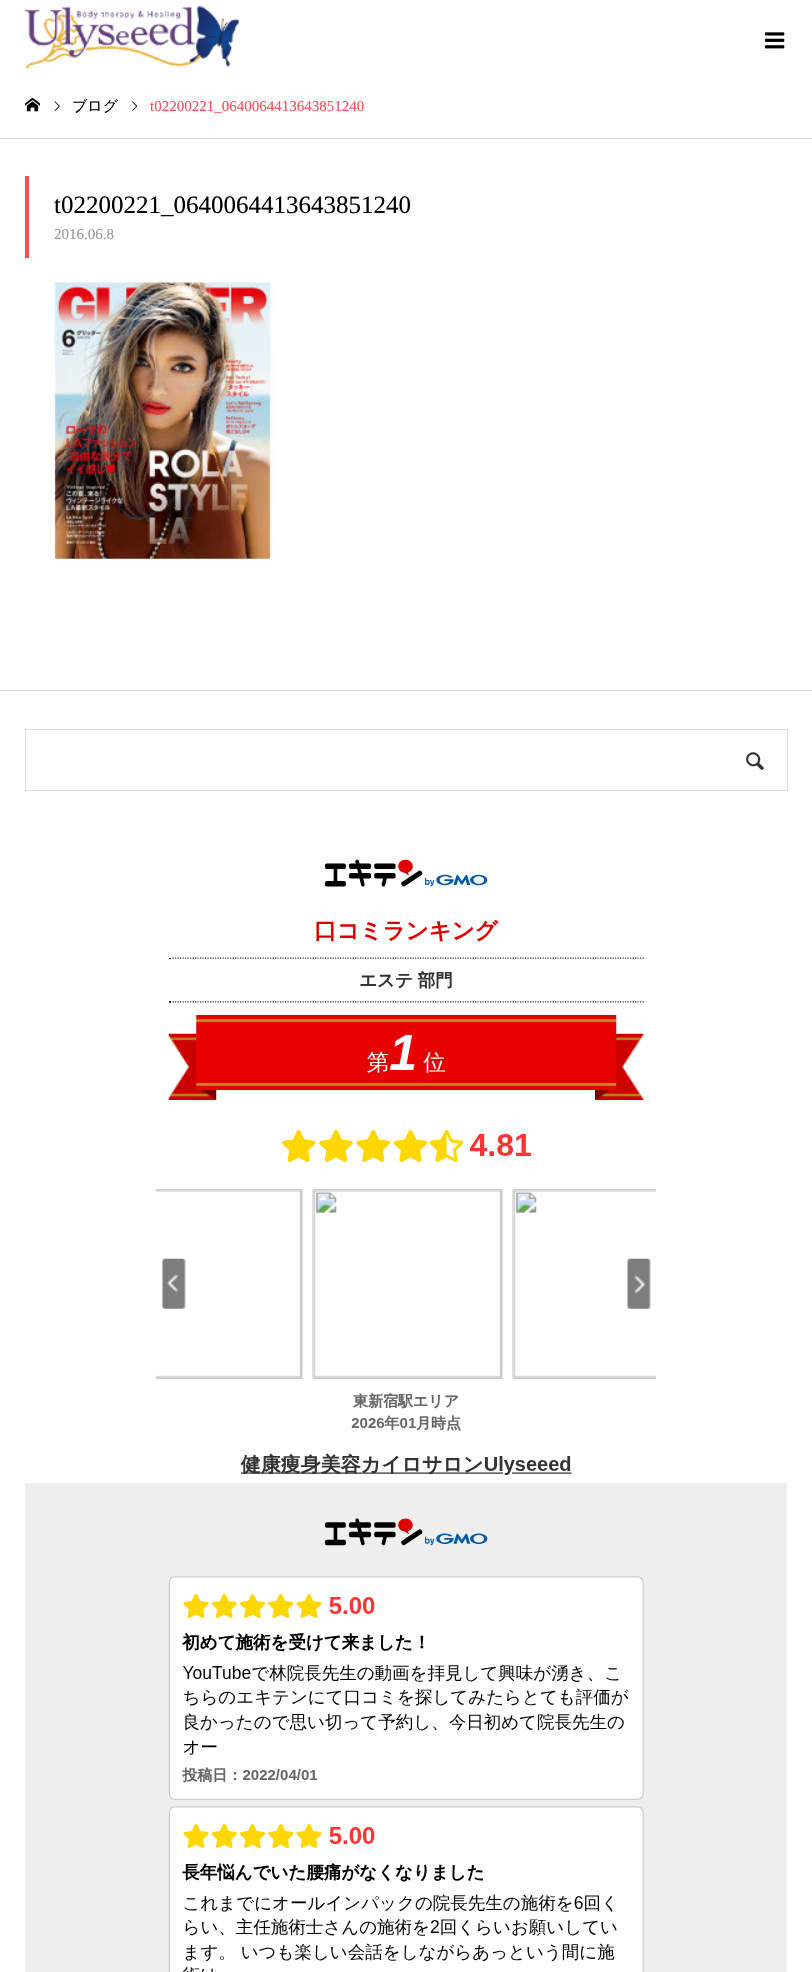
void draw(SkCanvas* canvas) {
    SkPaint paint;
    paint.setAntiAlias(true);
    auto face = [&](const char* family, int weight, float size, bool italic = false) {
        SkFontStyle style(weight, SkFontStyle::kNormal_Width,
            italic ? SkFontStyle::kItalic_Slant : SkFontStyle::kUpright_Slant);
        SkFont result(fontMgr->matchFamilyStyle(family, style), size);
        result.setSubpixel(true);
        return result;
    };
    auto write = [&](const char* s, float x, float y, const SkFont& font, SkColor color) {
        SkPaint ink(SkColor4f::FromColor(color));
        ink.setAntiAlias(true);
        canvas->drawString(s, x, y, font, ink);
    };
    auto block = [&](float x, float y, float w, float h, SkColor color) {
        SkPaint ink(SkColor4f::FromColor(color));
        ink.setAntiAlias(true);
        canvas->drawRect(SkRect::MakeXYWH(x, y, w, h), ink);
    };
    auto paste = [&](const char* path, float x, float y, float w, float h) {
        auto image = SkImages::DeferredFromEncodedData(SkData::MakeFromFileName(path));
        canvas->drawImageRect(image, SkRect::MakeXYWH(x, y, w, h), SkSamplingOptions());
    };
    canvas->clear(SK_ColorWHITE);
    paste("pic1.png", 25, 6, 214, 63);
    paste("pic2.png", 765, 32, 20, 17);
    block(0, 138, 812, 1, SkColorSetRGB(221, 221, 221));
    paste("pic3.png", 25, 98, 15, 14);
    paste("pic4.png", 54, 101, 6, 10);
    auto kFont1 = face("WenQuanYi Zen Hei", 500, 15);
    write("ブログ", 72, 111, kFont1, SK_ColorBLACK);
    paste("pic5.png", 132, 101, 6, 10);
    auto kFont2 = face("Liberation Serif", 400, 15);
    write("t02200221_0640064413643851240", 150, 111, kFont2, SkColorSetRGB(255, 75, 84));
    block(25, 176, 4, 82, SkColorSetRGB(255, 75, 84));
    auto kFont3 = face("Liberation Serif", 400, 25);
    write("t02200221_0640064413643851240", 54, 213, kFont3, SK_ColorBLACK);
    write("2016.06.8", 54, 239, kFont2, SkColorSetRGB(153, 153, 153));
    paste("pic6.png", 54, 282, 221, 277);
    block(0, 690, 812, 1, SkColorSetRGB(221, 221, 221));
    paint.setStyle(SkPaint::kStroke_Style);
    paint.setStrokeWidth(1);
    paint.setColor(SkColorSetRGB(221, 221, 221));
    canvas->drawRect(SkRect::MakeXYWH(25.5f, 729.5f, 762, 61), paint);
    paste("pic7.png", 746, 752, 18, 18);
    paste("pic8.png", 156, 859, 500, 616);
    paste("pic9.png", 25, 1483, 762, 489);
}
